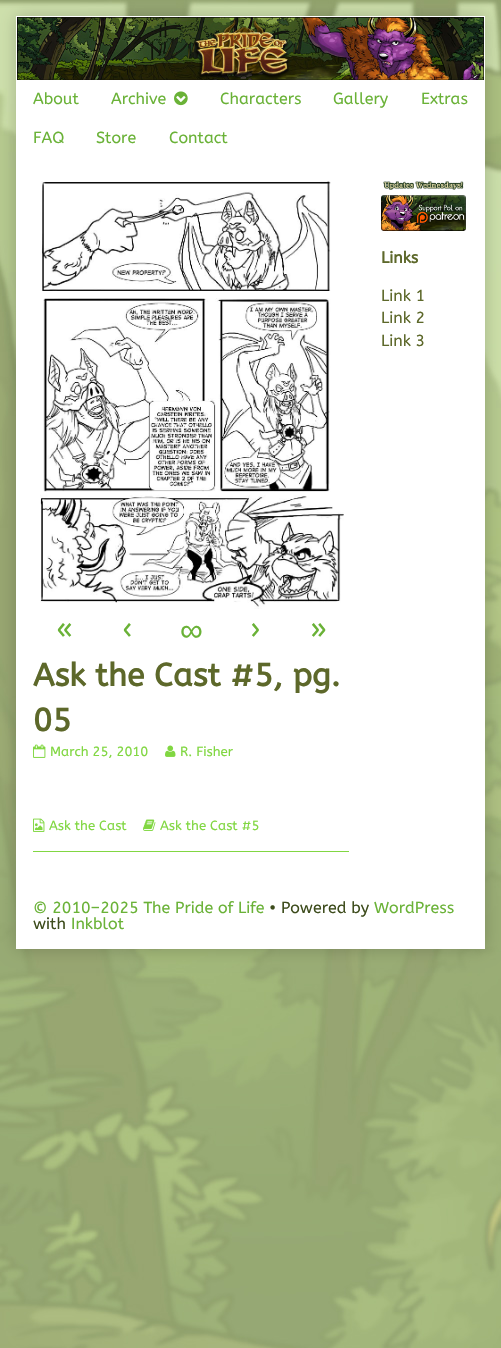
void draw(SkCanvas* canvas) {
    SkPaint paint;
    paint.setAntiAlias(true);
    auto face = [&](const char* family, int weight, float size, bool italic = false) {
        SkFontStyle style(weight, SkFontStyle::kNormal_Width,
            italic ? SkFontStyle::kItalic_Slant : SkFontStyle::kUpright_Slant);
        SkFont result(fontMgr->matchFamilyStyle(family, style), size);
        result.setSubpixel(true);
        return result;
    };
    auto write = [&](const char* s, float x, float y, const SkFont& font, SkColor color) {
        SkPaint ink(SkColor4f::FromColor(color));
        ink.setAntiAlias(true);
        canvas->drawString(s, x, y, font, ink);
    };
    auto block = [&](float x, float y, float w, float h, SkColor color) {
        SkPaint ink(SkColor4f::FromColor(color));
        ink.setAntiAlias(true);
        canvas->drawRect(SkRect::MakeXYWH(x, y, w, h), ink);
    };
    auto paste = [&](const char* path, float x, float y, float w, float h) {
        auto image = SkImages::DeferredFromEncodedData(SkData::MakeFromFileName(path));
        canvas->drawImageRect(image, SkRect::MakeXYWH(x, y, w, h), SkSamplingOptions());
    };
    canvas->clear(SK_ColorWHITE);
    paste("pic1.png", 0, 0, 501, 1348);
    paint.setColor(SkColorSetARGB(51, 0, 0, 0));
    paint.setMaskFilter(SkMaskFilter::MakeBlur(kNormal_SkBlurStyle, 8));
    canvas->drawRect(SkRect::MakeXYWH(16, 16, 469, 933), paint);
    paint.setMaskFilter(nullptr);
    block(16, 16, 469, 933, SK_ColorWHITE);
    paste("pic2.png", 17, 17, 467, 63);
    auto kFont1 = face("ABeeZee", 400, 16);
    write("About", 33, 104, kFont1, SkColorSetRGB(106, 178, 55));
    write("Archive", 111, 104, kFont1, SkColorSetRGB(106, 178, 55));
    paste("pic3.png", 174, 91, 14, 15);
    write("Characters", 220, 104, kFont1, SkColorSetRGB(106, 178, 55));
    write("Gallery", 333, 104, kFont1, SkColorSetRGB(106, 178, 55));
    write("Extras", 421, 104, kFont1, SkColorSetRGB(106, 178, 55));
    write("FAQ", 33, 143, kFont1, SkColorSetRGB(106, 178, 55));
    write("Store", 96, 143, kFont1, SkColorSetRGB(106, 178, 55));
    write("Contact", 169, 143, kFont1, SkColorSetRGB(106, 178, 55));
    paste("pic4.png", 383, 181, 81, 9);
    paste("pic5.png", 381, 195, 85, 36);
    auto kFont2 = face("ABeeZee", 700, 16);
    write("Links", 381, 263, kFont2, SkColorSetRGB(93, 104, 42));
    write("Link 1", 381, 301, kFont1, SkColorSetRGB(93, 104, 42));
    write("Link 2", 381, 323, kFont1, SkColorSetRGB(93, 104, 42));
    write("Link 3", 381, 346, kFont1, SkColorSetRGB(93, 104, 42));
    paste("pic6.png", 40, 181, 304, 428);
    auto kFont3 = face("ABeeZee", 400, 32);
    write("«", 56, 641, kFont3, SkColorSetRGB(106, 178, 55));
    write("‹", 122, 641, kFont3, SkColorSetRGB(106, 178, 55));
    auto kFont4 = face("Liberation Sans", 400, 32);
    write("∞", 180, 641, kFont4, SkColorSetRGB(106, 178, 55));
    write("›", 249, 641, kFont3, SkColorSetRGB(106, 178, 55));
    write("»", 309, 641, kFont3, SkColorSetRGB(106, 178, 55));
    auto kFont5 = face("ABeeZee", 700, 32);
    write("Ask the Cast #5, pg.", 33, 686, kFont5, SkColorSetRGB(93, 104, 42));
    write("05", 33, 731, kFont5, SkColorSetRGB(93, 104, 42));
    paste("pic7.png", 33, 744, 13, 14);
    auto kFont6 = face("ABeeZee", 400, 13.25f);
    write("March 25, 2010", 50, 756, kFont6, SkColorSetRGB(129, 215, 66));
    paste("pic8.png", 165, 745, 11, 12);
    write("R. Fisher", 180, 756, kFont6, SkColorSetRGB(129, 215, 66));
    block(33, 851, 316, 1, SkColorSetRGB(129, 215, 66));
    paste("pic9.png", 33, 818, 12, 14);
    write("Ask the Cast", 49, 830, kFont6, SkColorSetRGB(129, 215, 66));
    paste("pic10.png", 143, 819, 13, 12);
    write("Ask the Cast #5", 160, 830, kFont6, SkColorSetRGB(129, 215, 66));
    write("© 2010–2025 The Pride of Life", 33, 913, kFont1, SkColorSetRGB(106, 178, 55));
    write("• Powered by", 269, 913, kFont1, SkColorSetRGB(61, 76, 28));
    write("WordPress", 374, 913, kFont1, SkColorSetRGB(106, 178, 55));
    write("with", 33, 929, kFont1, SkColorSetRGB(61, 76, 28));
    write("Inkblot", 71, 929, kFont1, SkColorSetRGB(106, 178, 55));
}
